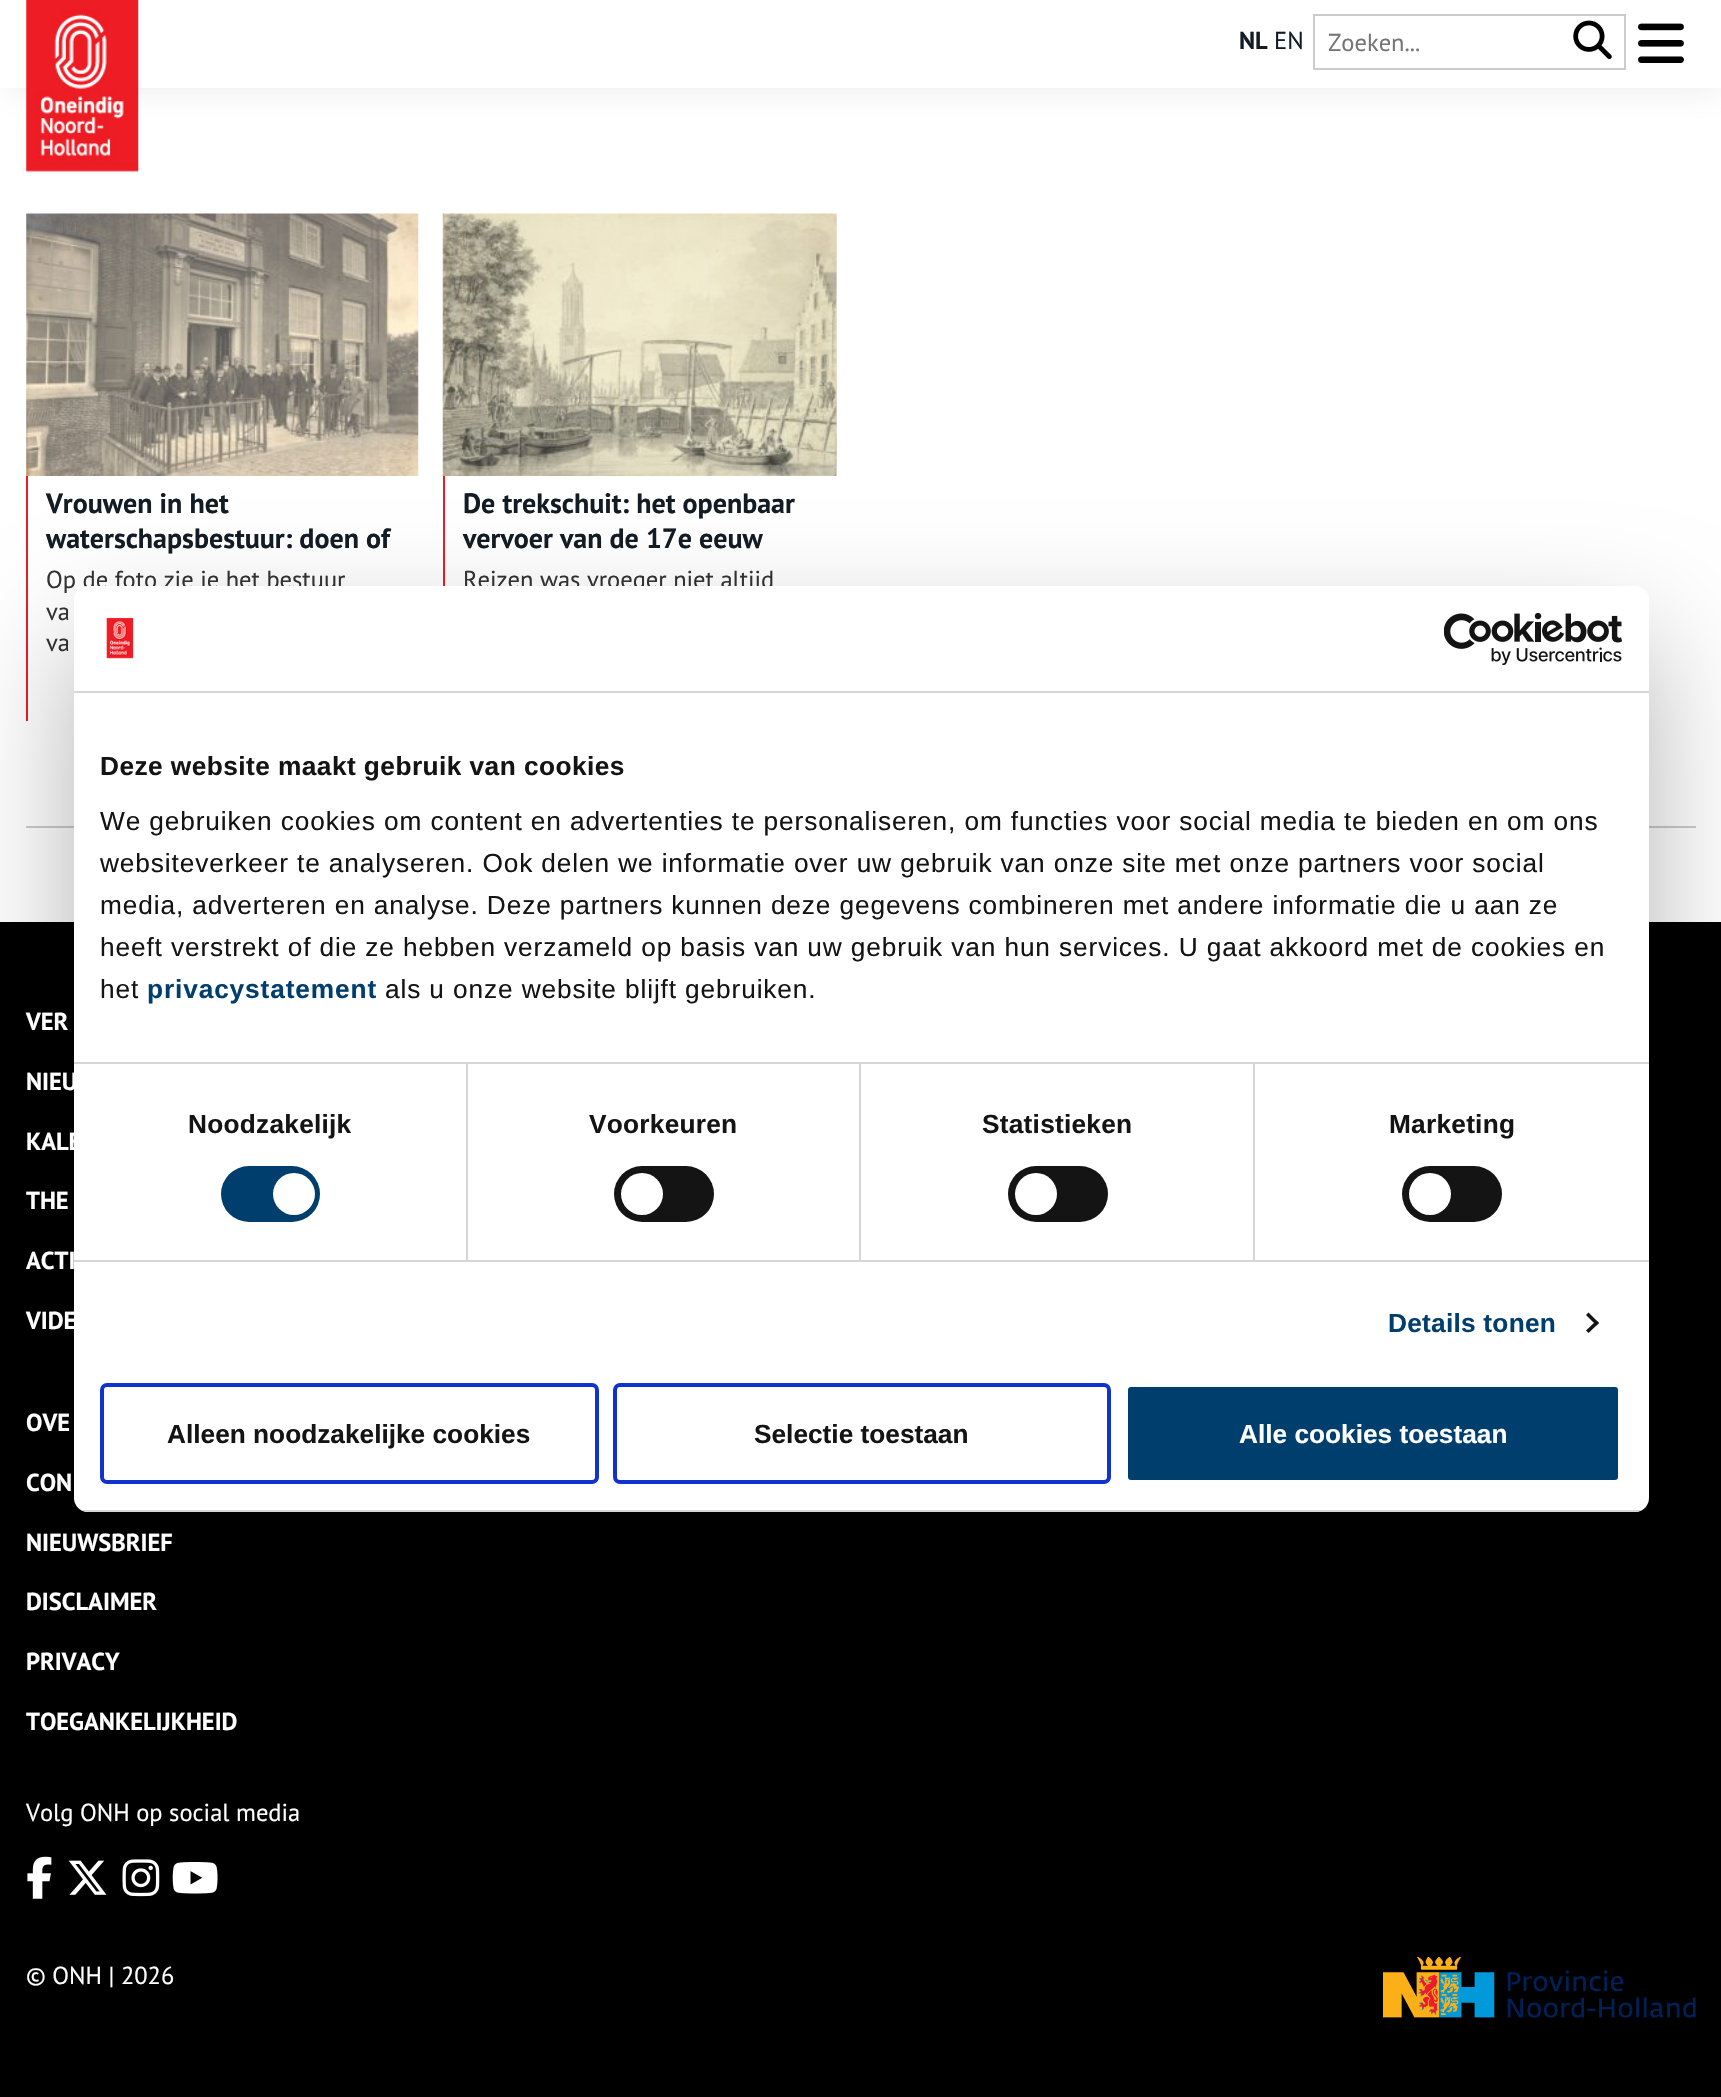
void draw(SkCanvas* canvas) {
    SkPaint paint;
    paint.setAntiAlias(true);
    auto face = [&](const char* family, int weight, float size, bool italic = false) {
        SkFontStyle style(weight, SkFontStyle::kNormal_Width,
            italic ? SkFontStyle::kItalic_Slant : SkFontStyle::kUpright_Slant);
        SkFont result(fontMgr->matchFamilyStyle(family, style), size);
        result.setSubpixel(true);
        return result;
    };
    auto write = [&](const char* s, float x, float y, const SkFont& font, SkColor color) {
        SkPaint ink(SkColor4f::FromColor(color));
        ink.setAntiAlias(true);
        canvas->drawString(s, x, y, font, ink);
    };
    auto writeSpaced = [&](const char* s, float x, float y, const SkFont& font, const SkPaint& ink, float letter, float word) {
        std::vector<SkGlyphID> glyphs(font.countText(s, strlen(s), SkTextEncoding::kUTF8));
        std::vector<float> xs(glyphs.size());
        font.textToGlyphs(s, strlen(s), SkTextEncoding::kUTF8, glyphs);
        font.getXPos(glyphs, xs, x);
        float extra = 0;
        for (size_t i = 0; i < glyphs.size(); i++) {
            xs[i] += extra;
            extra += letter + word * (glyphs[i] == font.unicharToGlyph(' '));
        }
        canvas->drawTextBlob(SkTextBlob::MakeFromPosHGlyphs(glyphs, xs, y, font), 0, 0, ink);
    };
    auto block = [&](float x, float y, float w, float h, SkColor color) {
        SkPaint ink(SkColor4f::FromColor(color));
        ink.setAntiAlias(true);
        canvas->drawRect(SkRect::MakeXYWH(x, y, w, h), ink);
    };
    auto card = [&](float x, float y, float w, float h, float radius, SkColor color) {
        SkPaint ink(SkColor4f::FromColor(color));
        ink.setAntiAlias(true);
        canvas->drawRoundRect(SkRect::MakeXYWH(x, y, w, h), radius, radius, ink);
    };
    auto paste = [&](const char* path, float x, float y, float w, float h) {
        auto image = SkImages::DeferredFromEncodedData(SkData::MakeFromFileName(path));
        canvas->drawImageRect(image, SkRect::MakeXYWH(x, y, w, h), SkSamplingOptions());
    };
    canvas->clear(SK_ColorWHITE);
    paint.setColor(SkColorSetARGB(38, 114, 110, 110));
    paint.setMaskFilter(SkMaskFilter::MakeBlur(kNormal_SkBlurStyle, 17));
    canvas->drawRect(SkRect::MakeXYWH(7, 7, 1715, 81), paint);
    paint.setMaskFilter(nullptr);
    block(0, 0, 1721, 88, SK_ColorWHITE);
    paste("pic1.png", 26, 0, 113, 172);
    auto kFont1 = face("PT Sans", 700, 24.5f);
    write("NL", 1239, 49, kFont1, SkColorSetRGB(19, 27, 36));
    auto kFont2 = face("PT Sans", 400, 24.5f);
    write("EN", 1274, 49, kFont2, SkColorSetRGB(19, 27, 36));
    paint.setStyle(SkPaint::kStroke_Style);
    paint.setStrokeWidth(2);
    paint.setColor(SkColorSetRGB(204, 204, 204));
    canvas->drawRect(SkRect::MakeXYWH(1314, 15, 311, 54), paint);
    write("Zoeken...", 1328, 51, kFont2, SkColorSetRGB(117, 117, 117));
    paste("pic2.png", 1573, 20, 39, 39);
    paste("pic3.png", 1638, 23, 46, 40);
    paste("pic4.png", 26, 213, 393, 263);
    block(26, 476, 2, 245, SkColorSetRGB(237, 28, 36));
    auto kFont3 = face("PT Sans", 700, 28);
    write("Vrouwen in het", 46, 513, kFont3, SkColorSetRGB(19, 27, 36));
    write("waterschapsbestuur: doen of", 46, 548, kFont3, SkColorSetRGB(19, 27, 36));
    write("Op de foto zie je het bestuur", 46, 588, kFont2, SkColorSetRGB(51, 51, 51));
    write("va", 46, 620, kFont2, SkColorSetRGB(51, 51, 51));
    write("va", 46, 651, kFont2, SkColorSetRGB(51, 51, 51));
    block(836, 214, 1, 262, SkColorSetRGB(234, 234, 234));
    paste("pic5.png", 442, 213, 395, 263);
    block(443, 476, 2, 110, SkColorSetRGB(237, 28, 36));
    write("De trekschuit: het openbaar", 463, 513, kFont3, SkColorSetRGB(19, 27, 36));
    write("vervoer van de 17e eeuw", 463, 548, kFont3, SkColorSetRGB(19, 27, 36));
    write("Reizen was vroeger niet altijd", 463, 588, kFont2, SkColorSetRGB(51, 51, 51));
    block(26, 826, 1670, 2, SkColorSetRGB(204, 204, 204));
    block(0, 922, 1721, 1175, SK_ColorBLACK);
    paint.setStyle(SkPaint::kFill_Style);
    paint.setColor(SkColorSetARGB(77, 0, 0, 0));
    paint.setMaskFilter(SkMaskFilter::MakeBlur(kNormal_SkBlurStyle, 59.5f));
    canvas->drawRoundRect(SkRect::MakeXYWH(74, 642, 1575, 926), 14, 14, paint);
    paint.setMaskFilter(nullptr);
    card(74, 586, 1575, 926, 14, SK_ColorWHITE);
    block(74, 691, 1575, 2, SkColorSetRGB(214, 214, 214));
    paste("pic6.png", 106, 617, 28, 42);
    paste("pic7.png", 1444, 613, 178, 52);
    block(74, 1062, 1575, 2, SkColorSetRGB(214, 214, 214));
    auto kFont4 = face("Liberation Sans", 700, 26.25f);
    paint.setColor(SkColorSetRGB(20, 20, 20));
    writeSpaced("Deze website maakt gebruik van cookies", 100, 775, kFont4, paint, 0.45f, 0);
    auto kFont5 = face("Liberation Sans", 400, 26.25f);
    writeSpaced("We gebruiken cookies om content en advertenties te personaliseren, om functies voor social media te bieden en om ons", 100, 830, kFont5, paint, 0.88f, 0);
    writeSpaced("websiteverkeer te analyseren. Ook delen we informatie over uw gebruik van onze site met onze partners voor social", 100, 872, kFont5, paint, 0.88f, 0);
    writeSpaced("media, adverteren en analyse. Deze partners kunnen deze gegevens combineren met andere informatie die u aan ze", 100, 914, kFont5, paint, 0.88f, 0);
    writeSpaced("heeft verstrekt of die ze hebben verzameld op basis van uw gebruik van hun services. U gaat akkoord met de cookies en", 100, 956, kFont5, paint, 0.88f, 0);
    writeSpaced("het", 100, 998, kFont5, paint, 0.88f, 0);
    paint.setColor(SkColorSetRGB(0, 62, 109));
    writeSpaced("privacystatement", 147, 998, kFont4, paint, 0.88f, 0);
    paint.setColor(SkColorSetRGB(20, 20, 20));
    writeSpaced("als u onze website blijft gebruiken.", 385, 998, kFont5, paint, 0.88f, 0);
    block(74, 1260, 1575, 2, SkColorSetRGB(214, 214, 214));
    block(466, 1064, 2, 196, SkColorSetRGB(214, 214, 214));
    writeSpaced("Noodzakelijk", 188, 1133, kFont4, paint, 0.25f, 0);
    card(221, 1166, 99, 56, 28, SkColorSetRGB(0, 62, 109));
    paint.setColor(SK_ColorWHITE);
    canvas->drawCircle(294, 1194, 21, paint);
    block(859, 1064, 2, 196, SkColorSetRGB(214, 214, 214));
    paint.setColor(SkColorSetRGB(20, 20, 20));
    writeSpaced("Voorkeuren", 589, 1133, kFont4, paint, 0.25f, 0);
    card(614, 1166, 100, 56, 28, SkColorSetRGB(20, 20, 20));
    paint.setColor(SK_ColorWHITE);
    canvas->drawCircle(642, 1194, 21, paint);
    block(1253, 1064, 2, 196, SkColorSetRGB(214, 214, 214));
    paint.setColor(SkColorSetRGB(20, 20, 20));
    writeSpaced("Statistieken", 982, 1133, kFont4, paint, 0.25f, 0);
    card(1008, 1166, 100, 56, 28, SkColorSetRGB(20, 20, 20));
    paint.setColor(SK_ColorWHITE);
    canvas->drawCircle(1036, 1194, 21, paint);
    paint.setColor(SkColorSetRGB(20, 20, 20));
    writeSpaced("Marketing", 1389, 1133, kFont4, paint, 0.25f, 0);
    card(1402, 1166, 100, 56, 28, SkColorSetRGB(20, 20, 20));
    paint.setColor(SK_ColorWHITE);
    canvas->drawCircle(1430, 1194, 21, paint);
    paint.setColor(SkColorSetRGB(0, 62, 109));
    writeSpaced("Details tonen", 1388, 1332, kFont4, paint, 0.25f, 0);
    paint.setColor(SkColorSetRGB(20, 20, 20));
    canvas->drawPath(SkPathBuilder().moveTo(1588.5f, 1312.5f).lineTo(1599, 1323).lineTo(1596.5f, 1325.5f).lineTo(1586, 1315).close().detach(), paint);
    canvas->drawPath(SkPathBuilder().moveTo(1596.5f, 1320.5f).lineTo(1599, 1323).lineTo(1588.5f, 1333).lineTo(1586, 1330.5f).close().detach(), paint);
    canvas->save();
    canvas->clipPath(SkPathBuilder().moveTo(88, 586).lineTo(1635, 586).cubicTo(1642.5f, 586, 1649, 592.5f, 1649, 600).lineTo(1649, 1498).cubicTo(1649, 1505.5f, 1642.5f, 1512, 1635, 1512).lineTo(88, 1512).cubicTo(80.5f, 1512, 74, 1505.5f, 74, 1498).lineTo(74, 600).cubicTo(74, 592.5f, 80.5f, 586, 88, 586).close().detach(), true);
    block(74, 1510, 1575, 2, SkColorSetRGB(214, 214, 214));
    canvas->restore();
    paint.setStyle(SkPaint::kStroke_Style);
    paint.setStrokeWidth(4);
    paint.setColor(SkColorSetRGB(16, 50, 207));
    canvas->drawRoundRect(SkRect::MakeXYWH(102, 1385, 495, 97), 5, 5, paint);
    write("Alleen noodzakelijke cookies", 167, 1443, kFont4, SkColorSetRGB(20, 20, 20));
    canvas->drawRoundRect(SkRect::MakeXYWH(615, 1385, 494, 97), 5, 5, paint);
    write("Selectie toestaan", 754, 1443, kFont4, SkColorSetRGB(20, 20, 20));
    paint.setStyle(SkPaint::kFill_Style);
    paint.setColor(SkColorSetRGB(0, 62, 109));
    canvas->drawRoundRect(SkRect::MakeXYWH(1126, 1385, 494, 97), 5, 5, paint);
    paint.setStyle(SkPaint::kStroke_Style);
    paint.setColor(SK_ColorWHITE);
    canvas->drawRoundRect(SkRect::MakeXYWH(1126, 1385, 494, 97), 5, 5, paint);
    write("Alle cookies toestaan", 1239, 1443, kFont4, SK_ColorWHITE);
    write("VER", 26, 1030, kFont1, SK_ColorWHITE);
    write("NIEU", 26, 1090, kFont1, SK_ColorWHITE);
    write("KALE", 26, 1150, kFont1, SK_ColorWHITE);
    write("THE", 26, 1209, kFont1, SK_ColorWHITE);
    write("ACTI", 26, 1269, kFont1, SK_ColorWHITE);
    write("VIDE", 26, 1329, kFont1, SK_ColorWHITE);
    write("OVE", 26, 1431, kFont1, SK_ColorWHITE);
    write("CON", 26, 1491, kFont1, SK_ColorWHITE);
    write("NIEUWSBRIEF", 26, 1551, kFont1, SK_ColorWHITE);
    write("DISCLAIMER", 26, 1610, kFont1, SK_ColorWHITE);
    write("PRIVACY", 26, 1670, kFont1, SK_ColorWHITE);
    write("TOEGANKELIJKHEID", 26, 1730, kFont1, SK_ColorWHITE);
    write("Volg ONH op social media", 26, 1821, kFont2, SK_ColorWHITE);
    paste("pic8.png", 27, 1856, 25, 43);
    paste("pic9.png", 68, 1860, 39, 35);
    paste("pic10.png", 122, 1859, 38, 38);
    paste("pic11.png", 172, 1862, 46, 32);
    write("© ONH | 2026", 26, 1984, kFont2, SK_ColorWHITE);
    paste("pic12.png", 1383, 1957, 313, 61);
}
